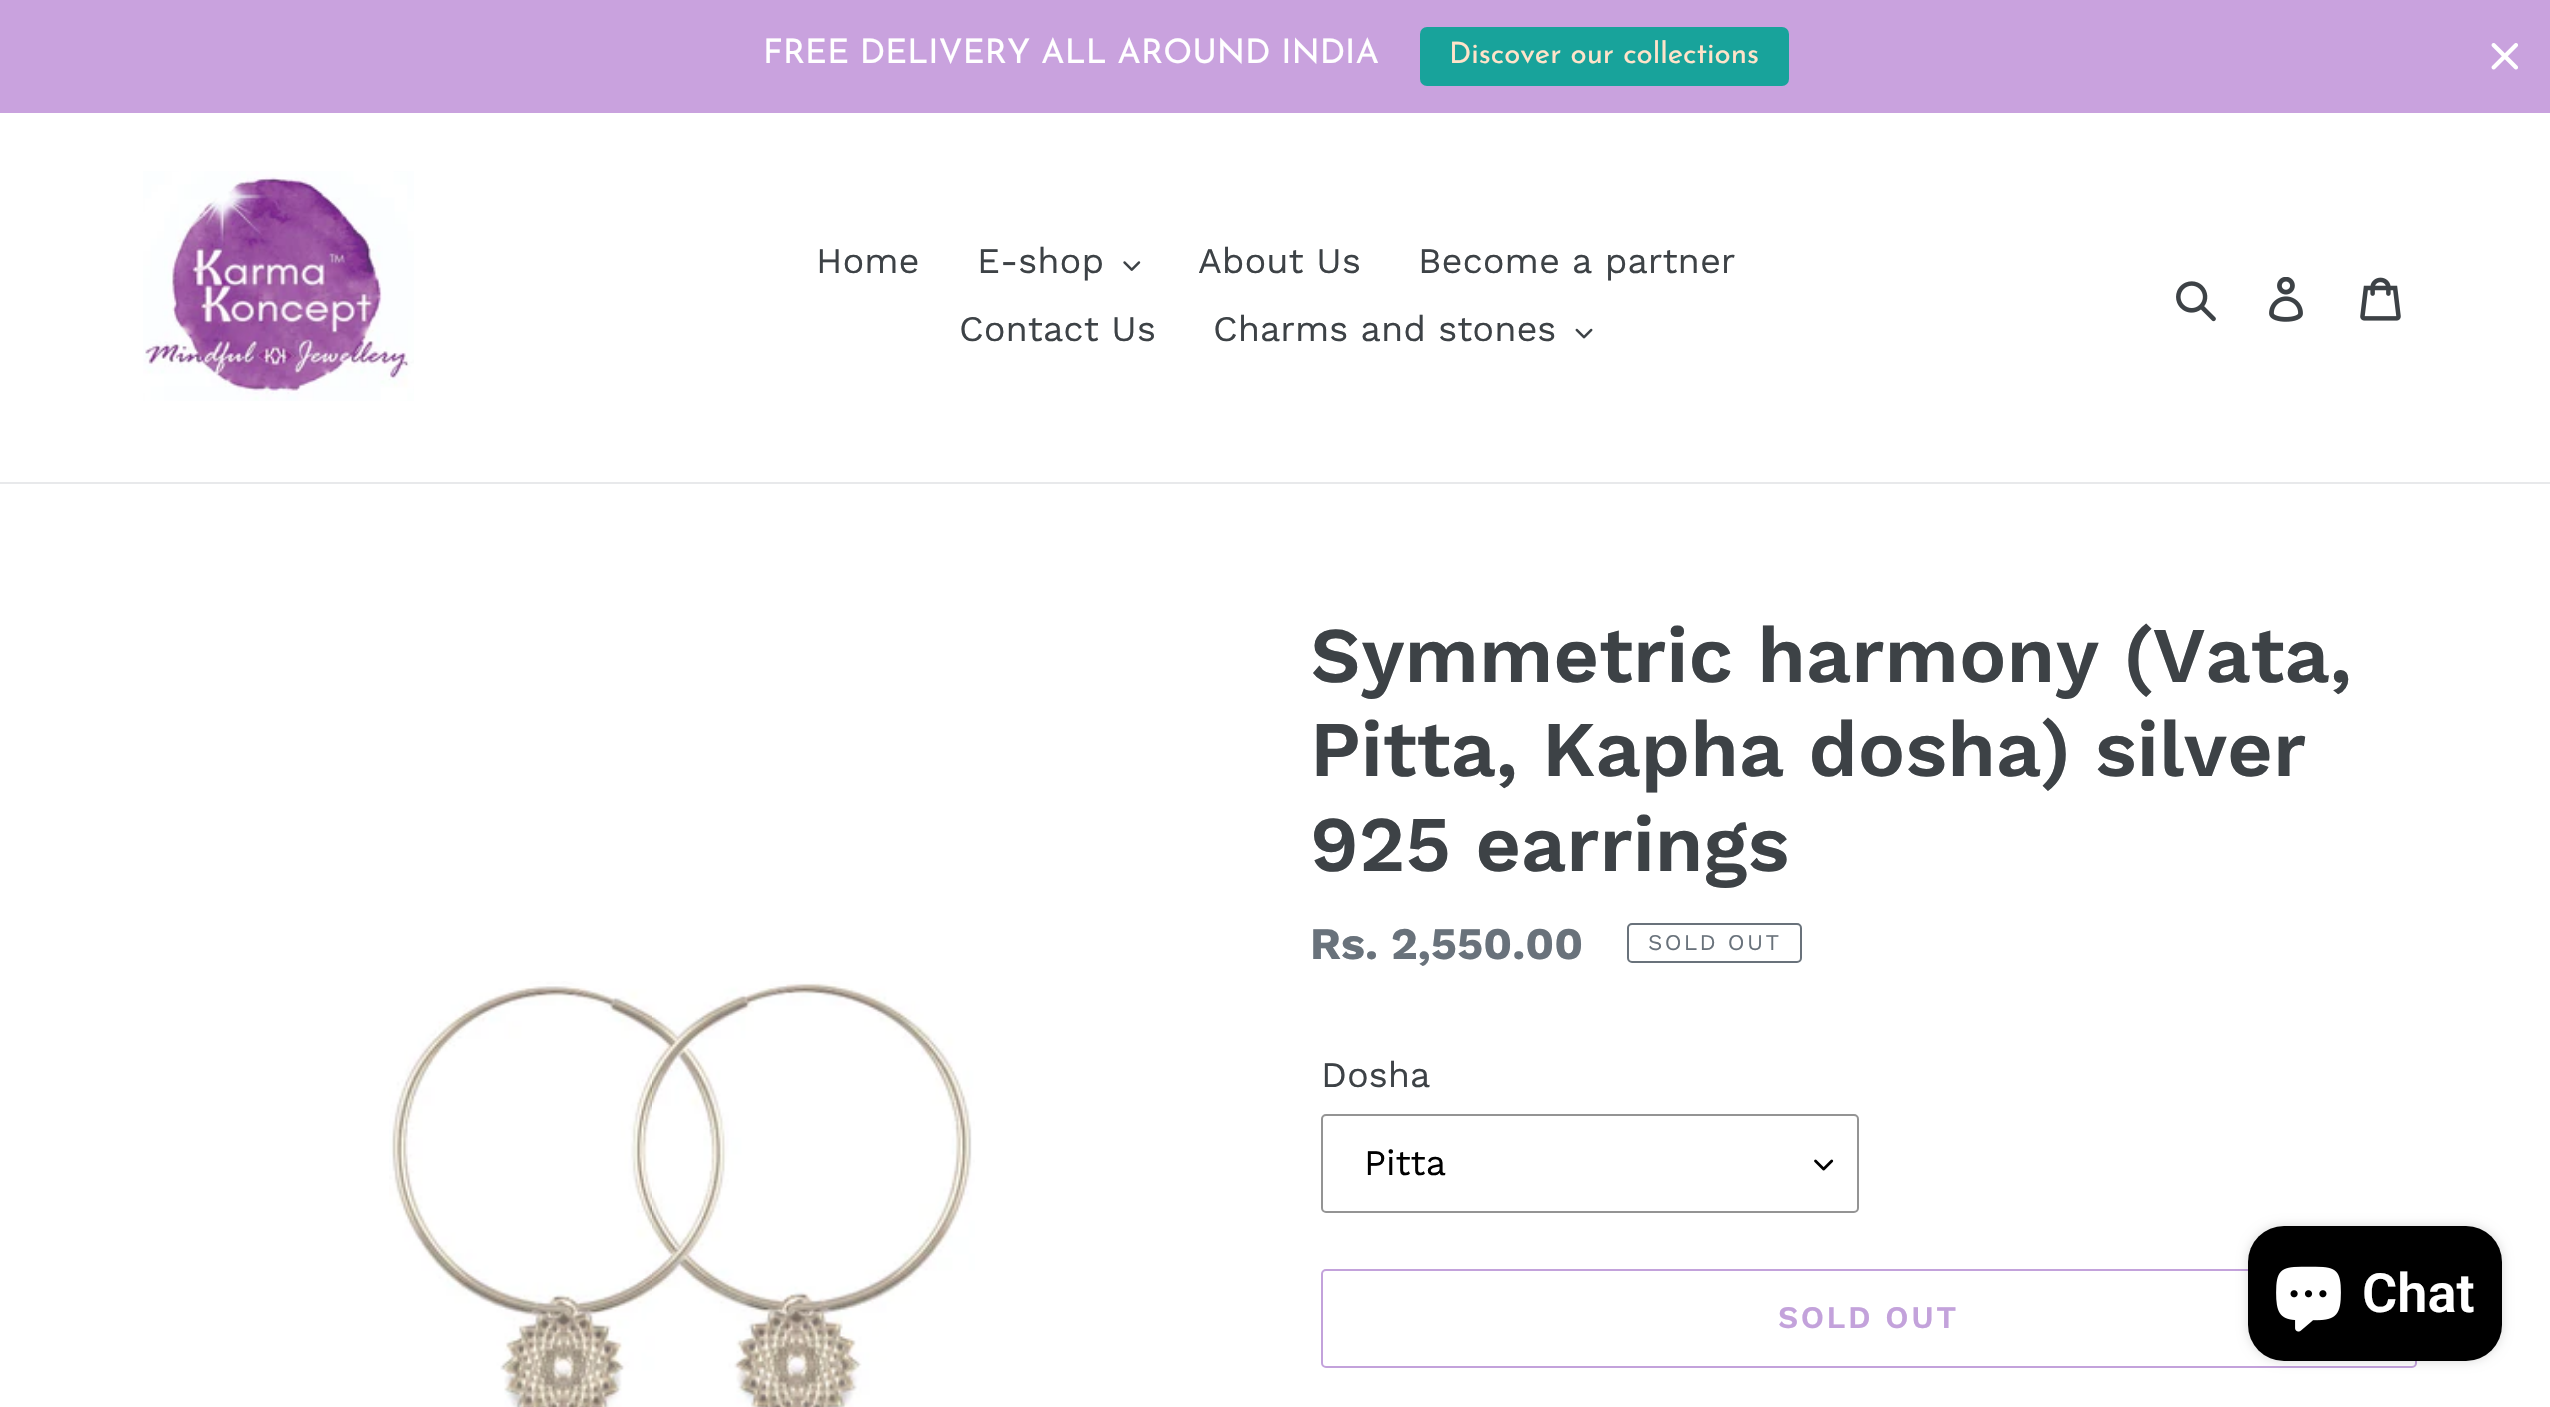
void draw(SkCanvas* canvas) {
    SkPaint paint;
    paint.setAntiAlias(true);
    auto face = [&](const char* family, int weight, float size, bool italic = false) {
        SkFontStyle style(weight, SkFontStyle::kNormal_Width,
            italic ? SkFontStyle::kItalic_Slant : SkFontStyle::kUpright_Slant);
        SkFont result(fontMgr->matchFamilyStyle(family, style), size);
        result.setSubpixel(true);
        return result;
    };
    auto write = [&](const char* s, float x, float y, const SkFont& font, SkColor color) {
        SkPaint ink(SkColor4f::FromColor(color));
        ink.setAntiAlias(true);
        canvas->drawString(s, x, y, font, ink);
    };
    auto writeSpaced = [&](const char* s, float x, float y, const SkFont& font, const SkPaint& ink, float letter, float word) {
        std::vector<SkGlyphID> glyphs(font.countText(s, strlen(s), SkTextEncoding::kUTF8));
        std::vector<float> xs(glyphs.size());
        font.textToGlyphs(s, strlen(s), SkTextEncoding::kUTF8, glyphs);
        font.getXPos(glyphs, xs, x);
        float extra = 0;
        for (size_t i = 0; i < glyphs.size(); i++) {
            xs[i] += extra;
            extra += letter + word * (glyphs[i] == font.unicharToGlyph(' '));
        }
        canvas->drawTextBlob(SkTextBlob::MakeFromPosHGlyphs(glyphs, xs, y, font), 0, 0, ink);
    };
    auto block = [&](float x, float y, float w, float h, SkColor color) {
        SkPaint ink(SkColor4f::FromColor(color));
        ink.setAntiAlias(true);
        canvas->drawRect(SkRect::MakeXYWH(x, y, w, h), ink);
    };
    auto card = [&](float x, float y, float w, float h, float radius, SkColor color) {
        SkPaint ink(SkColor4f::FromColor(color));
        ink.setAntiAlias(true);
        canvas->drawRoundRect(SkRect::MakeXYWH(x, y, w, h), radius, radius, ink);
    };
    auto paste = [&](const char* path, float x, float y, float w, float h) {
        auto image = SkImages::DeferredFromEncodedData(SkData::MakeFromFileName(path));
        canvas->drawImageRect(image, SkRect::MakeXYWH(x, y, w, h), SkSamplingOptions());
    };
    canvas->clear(SK_ColorWHITE);
    block(0, 0, 2550, 113, SkColorSetRGB(201, 162, 222));
    auto kFont1 = face("Josefin Sans", 100, 33.75f);
    write("FREE DELIVERY ALL AROUND INDIA", 763, 63, kFont1, SK_ColorWHITE);
    card(1420, 27, 369, 59, 7, SkColorSetRGB(24, 163, 155));
    auto kFont2 = face("Josefin Sans", 100, 29.5f);
    write("Discover our collections", 1449, 63, kFont2, SkColorSetRGB(255, 227, 201));
    paste("pic1.png", 2491, 43, 27, 27);
    block(0, 482, 2550, 2, SkColorSetRGB(232, 233, 235));
    paste("pic2.png", 143, 171, 271, 230);
    auto kFont3 = face("Work Sans", 400, 36);
    write("Home", 816, 273, kFont3, SkColorSetRGB(61, 66, 70));
    write("E-shop", 977, 273, kFont3, SkColorSetRGB(61, 66, 70));
    paste("pic3.png", 1123, 261, 18, 10);
    write("About Us", 1198, 273, kFont3, SkColorSetRGB(61, 66, 70));
    write("Become a partner", 1418, 273, kFont3, SkColorSetRGB(61, 66, 70));
    write("Contact Us", 959, 341, kFont3, SkColorSetRGB(61, 66, 70));
    write("Charms and stones", 1213, 341, kFont3, SkColorSetRGB(61, 66, 70));
    paste("pic4.png", 1575, 328, 18, 11);
    paste("pic5.png", 2176, 281, 40, 41);
    paste("pic6.png", 2269, 277, 34, 45);
    paste("pic7.png", 2360, 277, 41, 44);
    paste("pic8.png", 389, 981, 586, 426);
    auto kFont4 = face("Work Sans", 600, 78.75f);
    write("Symmetric harmony (Vata,", 1310, 682, kFont4, SkColorSetRGB(61, 66, 70));
    write("Pitta, Kapha dosha) silver", 1310, 776, kFont4, SkColorSetRGB(61, 66, 70));
    write("925 earrings", 1310, 871, kFont4, SkColorSetRGB(61, 66, 70));
    auto kFont5 = face("Work Sans", 700, 45);
    write("Rs. 2,550.00", 1310, 959, kFont5, SkColorSetRGB(105, 114, 123));
    paint.setStyle(SkPaint::kStroke_Style);
    paint.setStrokeWidth(2);
    paint.setColor(SkColorSetRGB(105, 114, 123));
    canvas->drawRoundRect(SkRect::MakeXYWH(1628, 924, 173, 38), 4, 4, paint);
    auto kFont6 = face("Work Sans", 400, 22.5f);
    paint.setStyle(SkPaint::kFill_Style);
    writeSpaced("SOLD OUT", 1648, 950, kFont6, paint, 2.25f, 0);
    write("Dosha", 1321, 1087, kFont3, SkColorSetRGB(61, 66, 70));
    paste("pic9.png", 1814, 1159, 20, 12);
    paint.setStyle(SkPaint::kStroke_Style);
    paint.setColor(SkColorSetRGB(148, 148, 148));
    canvas->drawRoundRect(SkRect::MakeXYWH(1322, 1115, 536, 97), 4, 4, paint);
    write("Pitta", 1364, 1175, kFont3, SK_ColorBLACK);
    paint.setColor(SkColorSetRGB(195, 162, 219));
    canvas->drawRoundRect(SkRect::MakeXYWH(1322, 1270, 1094, 97), 4, 4, paint);
    auto kFont7 = face("Work Sans", 600, 31.5f);
    paint.setStyle(SkPaint::kFill_Style);
    writeSpaced("SOLD OUT", 1778, 1328, kFont7, paint, 2.5f, 0);
    paint.setColor(SkColorSetARGB(38, 0, 0, 0));
    paint.setMaskFilter(SkMaskFilter::MakeBlur(kNormal_SkBlurStyle, 5.5f));
    canvas->drawRoundRect(SkRect::MakeXYWH(2248, 1226, 254, 135), 36, 36, paint);
    paint.setMaskFilter(nullptr);
    card(2248, 1226, 254, 135, 36, SK_ColorBLACK);
    paste("pic10.png", 2276, 1266, 65, 66);
    auto kFont8 = face("Roboto", 600, 54);
    write("Chat", 2362, 1312, kFont8, SK_ColorWHITE);
}
